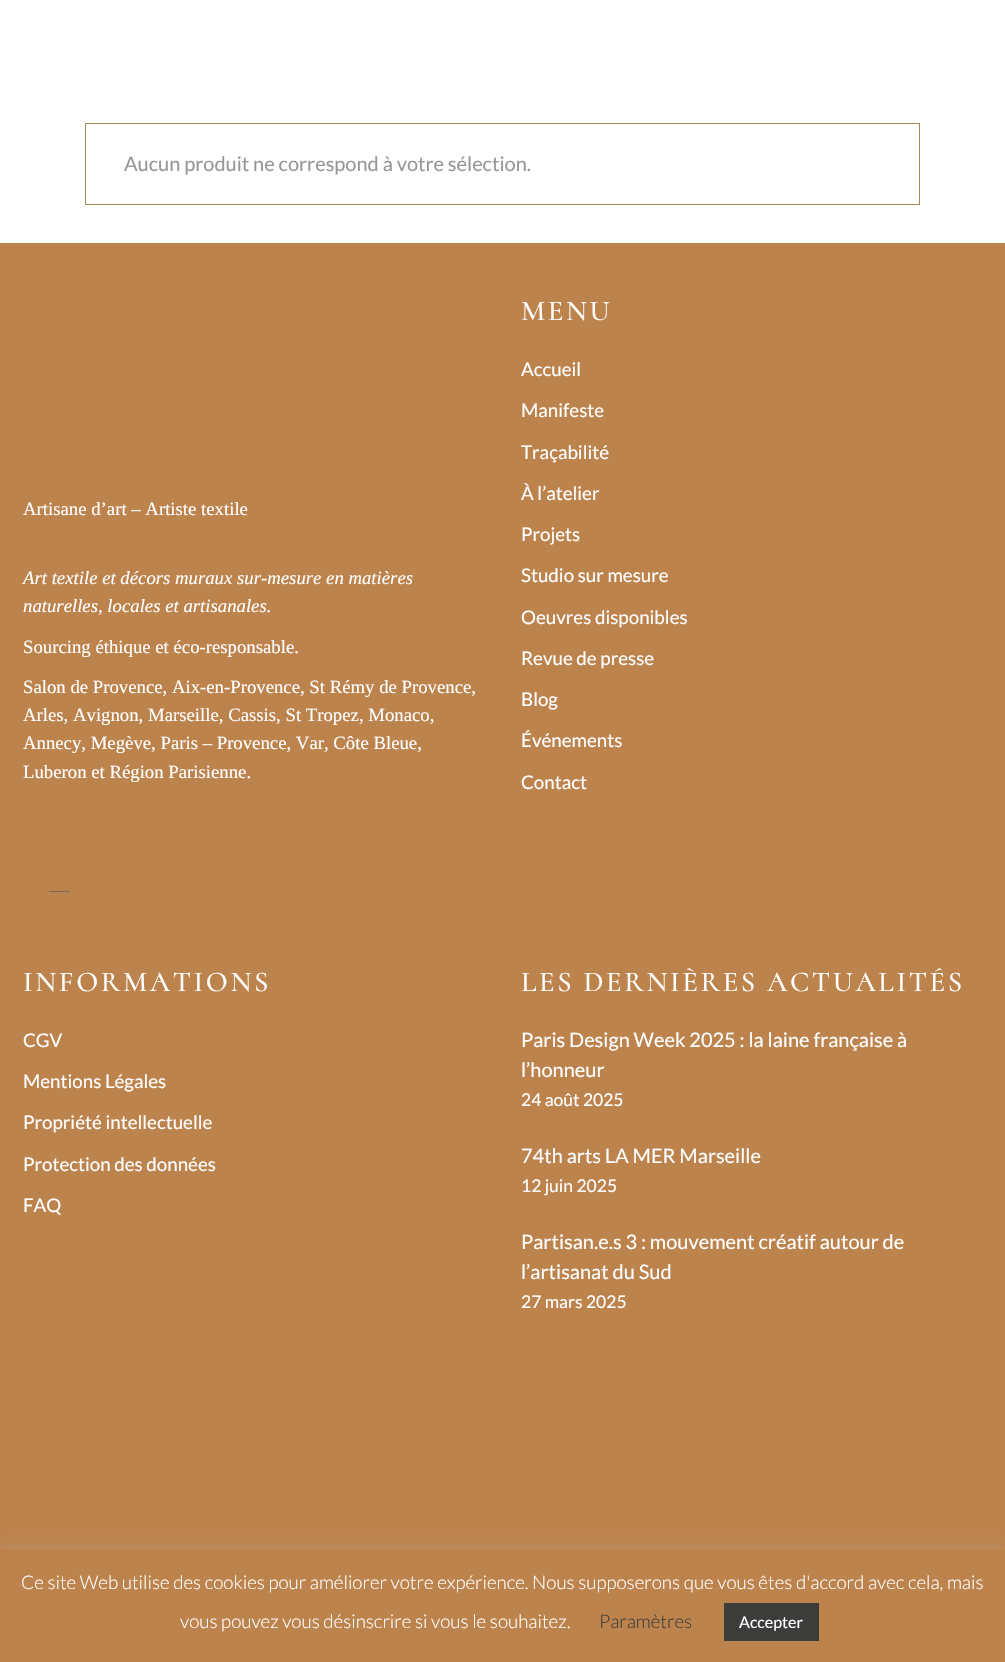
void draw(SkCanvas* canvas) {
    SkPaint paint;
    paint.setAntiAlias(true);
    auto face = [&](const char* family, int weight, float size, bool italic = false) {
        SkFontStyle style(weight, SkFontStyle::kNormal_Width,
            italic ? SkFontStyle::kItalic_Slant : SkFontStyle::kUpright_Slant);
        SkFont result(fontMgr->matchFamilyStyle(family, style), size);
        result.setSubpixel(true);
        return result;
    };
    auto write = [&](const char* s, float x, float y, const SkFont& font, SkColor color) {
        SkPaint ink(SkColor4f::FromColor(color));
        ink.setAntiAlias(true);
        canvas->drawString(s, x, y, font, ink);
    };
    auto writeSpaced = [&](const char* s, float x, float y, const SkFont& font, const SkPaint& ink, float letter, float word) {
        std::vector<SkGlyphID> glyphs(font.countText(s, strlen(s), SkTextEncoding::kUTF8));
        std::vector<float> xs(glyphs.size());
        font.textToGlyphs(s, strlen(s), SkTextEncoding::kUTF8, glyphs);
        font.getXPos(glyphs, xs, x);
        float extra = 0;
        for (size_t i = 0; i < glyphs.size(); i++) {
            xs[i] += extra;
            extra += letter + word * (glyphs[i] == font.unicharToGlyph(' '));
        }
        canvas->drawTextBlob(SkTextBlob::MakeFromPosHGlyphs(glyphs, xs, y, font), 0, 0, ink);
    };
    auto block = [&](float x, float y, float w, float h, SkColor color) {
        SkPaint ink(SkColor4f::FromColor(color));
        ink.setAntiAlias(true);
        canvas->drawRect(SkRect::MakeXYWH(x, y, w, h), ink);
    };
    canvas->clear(SK_ColorWHITE);
    paint.setStyle(SkPaint::kStroke_Style);
    paint.setStrokeWidth(1);
    paint.setColor(SkColorSetRGB(167, 134, 86));
    canvas->drawRect(SkRect::MakeXYWH(85.5f, 123.5f, 834, 81), paint);
    auto kFont1 = face("Lato", 400, 20);
    write("Aucun produit ne correspond à votre sélection.", 124, 171, kFont1, SkColorSetRGB(150, 150, 150));
    block(0, 243, 1005, 1306, SkColorSetRGB(188, 131, 77));
    auto kFont2 = face("Liberation Serif", 400, 18.75f);
    write("Artisane d’art – Artiste textile", 23, 515, kFont2, SK_ColorWHITE);
    auto kFont3 = face("Liberation Serif", 400, 18.75f, true);
    write("Art textile et décors muraux sur-mesure en matières", 23, 584, kFont3, SK_ColorWHITE);
    write("naturelles, locales et artisanales.", 23, 612, kFont3, SK_ColorWHITE);
    write("Sourcing éthique et éco-responsable.", 23, 653, kFont2, SK_ColorWHITE);
    write("Salon de Provence, Aix-en-Provence, St Rémy de Provence,", 23, 693, kFont2, SK_ColorWHITE);
    write("Arles, Avignon, Marseille, Cassis, St Tropez, Monaco,", 23, 721, kFont2, SK_ColorWHITE);
    write("Annecy, Megève, Paris – Provence, Var, Côte Bleue,", 23, 749, kFont2, SK_ColorWHITE);
    write("Luberon et Région Parisienne.", 23, 778, kFont2, SK_ColorWHITE);
    block(49, 891, 21, 1, SkColorSetRGB(120, 109, 93));
    auto kFont4 = face("Cormorant", 500, 28.75f);
    paint.setStyle(SkPaint::kFill_Style);
    paint.setColor(SK_ColorWHITE);
    writeSpaced("MENU", 521, 320, kFont4, paint, 2.6f, 0);
    auto kFont5 = face("Lato", 400, 18.75f);
    write("Accueil", 521, 376, kFont5, SK_ColorWHITE);
    write("Manifeste", 521, 417, kFont5, SK_ColorWHITE);
    write("Traçabilité", 521, 459, kFont5, SK_ColorWHITE);
    write("À l’atelier", 521, 500, kFont5, SK_ColorWHITE);
    write("Projets", 521, 541, kFont5, SK_ColorWHITE);
    write("Studio sur mesure", 521, 582, kFont5, SK_ColorWHITE);
    write("Oeuvres disponibles", 521, 624, kFont5, SK_ColorWHITE);
    write("Revue de presse", 521, 665, kFont5, SK_ColorWHITE);
    write("Blog", 521, 706, kFont5, SK_ColorWHITE);
    write("Événements", 521, 747, kFont5, SK_ColorWHITE);
    write("Contact", 521, 789, kFont5, SK_ColorWHITE);
    writeSpaced("INFORMATIONS", 23, 991, kFont4, paint, 2.6f, 0);
    write("CGV", 23, 1047, kFont5, SK_ColorWHITE);
    write("Mentions Légales", 23, 1088, kFont5, SK_ColorWHITE);
    write("Propriété intellectuelle", 23, 1129, kFont5, SK_ColorWHITE);
    write("Protection des données", 23, 1171, kFont5, SK_ColorWHITE);
    write("FAQ", 23, 1212, kFont5, SK_ColorWHITE);
    writeSpaced("LES DERNIÈRES ACTUALITÉS", 521, 991, kFont4, paint, 2.6f, 0);
    write("Paris Design Week 2025 : la laine française à", 521, 1047, kFont1, SK_ColorWHITE);
    write("l’honneur", 521, 1077, kFont1, SK_ColorWHITE);
    auto kFont6 = face("Lato", 400, 17.5f);
    write("24 août 2025", 521, 1106, kFont6, SK_ColorWHITE);
    write("74th arts LA MER Marseille", 521, 1163, kFont1, SK_ColorWHITE);
    write("12 juin 2025", 521, 1192, kFont6, SK_ColorWHITE);
    write("Partisan.e.s 3 : mouvement créatif autour de", 521, 1249, kFont1, SK_ColorWHITE);
    write("l’artisanat du Sud", 521, 1279, kFont1, SK_ColorWHITE);
    write("27 mars 2025", 521, 1308, kFont6, SK_ColorWHITE);
    paint.setColor(SkColorSetARGB(77, 172, 171, 171));
    paint.setMaskFilter(SkMaskFilter::MakeBlur(kNormal_SkBlurStyle, 6));
    canvas->drawRect(SkRect::MakeXYWH(0, 1548, 1005, 113), paint);
    paint.setMaskFilter(nullptr);
    block(0, 1549, 1005, 113, SkColorSetRGB(188, 131, 77));
    auto kFont7 = face("Lato", 300, 18.75f);
    write("Ce site Web utilise des cookies pour améliorer votre expérience. Nous supposerons que vous êtes d'accord avec cela, mais", 21, 1589, kFont7, SK_ColorWHITE);
    write("vous pouvez vous désinscrire si vous le souhaitez.", 180, 1628, kFont7, SK_ColorWHITE);
    write("Paramètres", 599, 1628, kFont7, SkColorSetRGB(60, 60, 59));
    block(724, 1603, 95, 38, SkColorSetRGB(60, 60, 59));
    auto kFont8 = face("Lato", 400, 16);
    write("Accepter", 739, 1628, kFont8, SK_ColorWHITE);
}
